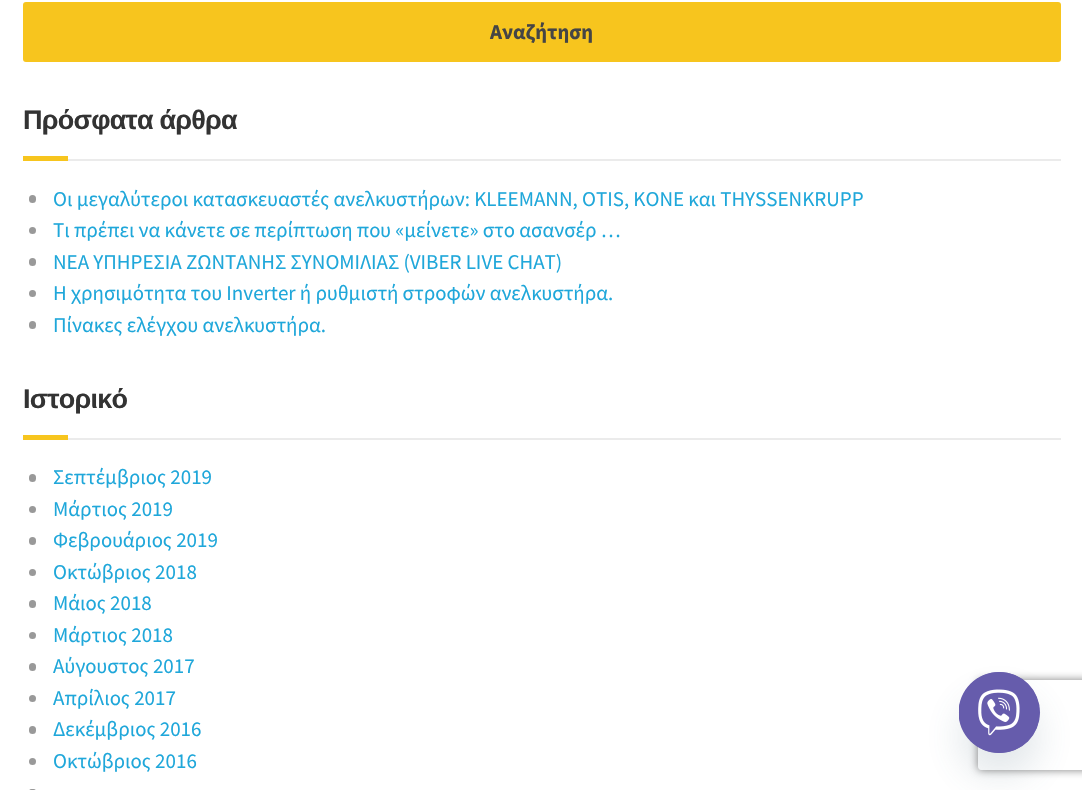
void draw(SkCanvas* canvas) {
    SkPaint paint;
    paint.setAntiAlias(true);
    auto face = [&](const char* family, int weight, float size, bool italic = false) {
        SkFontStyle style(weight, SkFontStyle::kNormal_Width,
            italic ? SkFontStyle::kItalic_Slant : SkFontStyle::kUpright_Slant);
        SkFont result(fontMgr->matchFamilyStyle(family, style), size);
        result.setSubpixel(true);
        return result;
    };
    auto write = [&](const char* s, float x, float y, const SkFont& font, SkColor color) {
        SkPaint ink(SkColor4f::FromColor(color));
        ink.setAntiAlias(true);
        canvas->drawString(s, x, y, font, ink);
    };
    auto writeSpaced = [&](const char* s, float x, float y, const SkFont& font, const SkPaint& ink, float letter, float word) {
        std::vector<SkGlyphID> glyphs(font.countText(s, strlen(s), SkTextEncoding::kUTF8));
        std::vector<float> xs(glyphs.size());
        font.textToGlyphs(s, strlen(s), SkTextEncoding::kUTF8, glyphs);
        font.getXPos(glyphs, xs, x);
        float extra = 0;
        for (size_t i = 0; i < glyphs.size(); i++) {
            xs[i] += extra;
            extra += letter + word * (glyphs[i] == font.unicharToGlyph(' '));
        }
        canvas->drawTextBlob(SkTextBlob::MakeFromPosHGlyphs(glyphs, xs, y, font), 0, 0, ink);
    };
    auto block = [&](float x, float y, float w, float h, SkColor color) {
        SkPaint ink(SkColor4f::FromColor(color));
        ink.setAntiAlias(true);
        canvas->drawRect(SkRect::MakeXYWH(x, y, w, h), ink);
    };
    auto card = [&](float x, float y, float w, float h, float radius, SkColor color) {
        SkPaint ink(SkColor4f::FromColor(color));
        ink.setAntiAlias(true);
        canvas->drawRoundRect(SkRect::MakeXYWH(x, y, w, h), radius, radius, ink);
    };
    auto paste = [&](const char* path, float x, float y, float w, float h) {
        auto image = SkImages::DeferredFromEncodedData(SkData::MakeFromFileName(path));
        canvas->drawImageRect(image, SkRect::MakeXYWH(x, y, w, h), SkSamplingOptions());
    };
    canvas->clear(SK_ColorWHITE);
    card(23, 2, 1038, 60, 3, SkColorSetRGB(247, 197, 30));
    auto kFont1 = face("Source Sans Pro", 700, 21);
    write("Αναζήτηση", 490, 39, kFont1, SkColorSetRGB(69, 69, 69));
    block(68, 159, 993, 2, SkColorSetRGB(235, 235, 235));
    auto kFont2 = face("Liberation Sans", 700, 27);
    paint.setColor(SkColorSetRGB(51, 51, 51));
    writeSpaced("Πρόσφατα άρθρα", 23, 129, kFont2, paint, -0.75f, 0);
    block(23, 156, 45, 5, SkColorSetRGB(247, 197, 30));
    card(29, 195, 7, 8, 3.5f, SkColorSetRGB(153, 153, 153));
    auto kFont3 = face("Source Sans Pro", 400, 21);
    write("Οι μεγαλύτεροι κατασκευαστές ανελκυστήρων: KLEEMANN, OTIS, KONE και THYSSENKRUPP", 53, 206, kFont3, SkColorSetRGB(31, 167, 218));
    paint.setColor(SkColorSetRGB(153, 153, 153));
    canvas->drawCircle(32.5f, 230.5f, 3.5f, paint);
    write("Τι πρέπει να κάνετε σε περίπτωση που «μείνετε» στο ασανσέρ …", 53, 237, kFont3, SkColorSetRGB(31, 167, 218));
    card(29, 258, 7, 8, 3.5f, SkColorSetRGB(153, 153, 153));
    write("ΝΕΑ ΥΠΗΡΕΣΙΑ ΖΩΝΤΑΝΗΣ ΣΥΝΟΜΙΛΙΑΣ (VIBER LIVE CHAT)", 53, 269, kFont3, SkColorSetRGB(31, 167, 218));
    canvas->drawCircle(32.5f, 293.5f, 3.5f, paint);
    write("Η χρησιμότητα του Inverter ή ρυθμιστή στροφών ανελκυστήρα.", 53, 300, kFont3, SkColorSetRGB(31, 167, 218));
    card(29, 321, 7, 8, 3.5f, SkColorSetRGB(153, 153, 153));
    write("Πίνακες ελέγχου ανελκυστήρα.", 53, 332, kFont3, SkColorSetRGB(31, 167, 218));
    block(68, 438, 993, 2, SkColorSetRGB(235, 235, 235));
    paint.setColor(SkColorSetRGB(51, 51, 51));
    writeSpaced("Ιστορικό", 23, 408, kFont2, paint, -0.75f, 0);
    block(23, 435, 45, 5, SkColorSetRGB(247, 197, 30));
    card(29, 474, 7, 8, 3.5f, SkColorSetRGB(153, 153, 153));
    write("Σεπτέμβριος 2019", 53, 484, kFont3, SkColorSetRGB(31, 167, 218));
    paint.setColor(SkColorSetRGB(153, 153, 153));
    canvas->drawCircle(32.5f, 509.5f, 3.5f, paint);
    write("Μάρτιος 2019", 53, 516, kFont3, SkColorSetRGB(31, 167, 218));
    card(29, 537, 7, 8, 3.5f, SkColorSetRGB(153, 153, 153));
    write("Φεβρουάριος 2019", 53, 547, kFont3, SkColorSetRGB(31, 167, 218));
    canvas->drawCircle(32.5f, 572.5f, 3.5f, paint);
    write("Οκτώβριος 2018", 53, 579, kFont3, SkColorSetRGB(31, 167, 218));
    card(29, 600, 7, 8, 3.5f, SkColorSetRGB(153, 153, 153));
    write("Μάιος 2018", 53, 610, kFont3, SkColorSetRGB(31, 167, 218));
    canvas->drawCircle(32.5f, 635.5f, 3.5f, paint);
    write("Μάρτιος 2018", 53, 642, kFont3, SkColorSetRGB(31, 167, 218));
    card(29, 663, 7, 8, 3.5f, SkColorSetRGB(153, 153, 153));
    write("Αύγουστος 2017", 53, 673, kFont3, SkColorSetRGB(31, 167, 218));
    canvas->drawCircle(32.5f, 698.5f, 3.5f, paint);
    write("Απρίλιος 2017", 53, 705, kFont3, SkColorSetRGB(31, 167, 218));
    card(29, 726, 7, 8, 3.5f, SkColorSetRGB(153, 153, 153));
    write("Δεκέμβριος 2016", 53, 736, kFont3, SkColorSetRGB(31, 167, 218));
    canvas->drawCircle(32.5f, 761.5f, 3.5f, paint);
    write("Οκτώβριος 2016", 53, 768, kFont3, SkColorSetRGB(31, 167, 218));
    card(29, 789, 7, 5, 3.5f, SkColorSetRGB(153, 153, 153));
    paint.setColor(SkColorSetARGB(41, 73, 104, 126));
    paint.setMaskFilter(SkMaskFilter::MakeBlur(kNormal_SkBlurStyle, 18));
    canvas->drawRoundRect(SkRect::MakeXYWH(959, 696, 81, 81), 40.5f, 40.5f, paint);
    paint.setMaskFilter(nullptr);
    canvas->save();
    canvas->clipPath(SkPathBuilder(SkPathFillType::kEvenOdd).moveTo(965, 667).lineTo(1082, 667).lineTo(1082, 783).lineTo(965, 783).close().moveTo(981, 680).lineTo(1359, 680).cubicTo(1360.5f, 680, 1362, 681.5f, 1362, 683).lineTo(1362, 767).cubicTo(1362, 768.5f, 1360.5f, 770, 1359, 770).lineTo(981, 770).cubicTo(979.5f, 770, 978, 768.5f, 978, 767).lineTo(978, 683).cubicTo(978, 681.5f, 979.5f, 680, 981, 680).close().detach(), true);
    paint.setColor(SkColorSetRGB(128, 128, 128));
    paint.setMaskFilter(SkMaskFilter::MakeBlur(kNormal_SkBlurStyle, 4));
    canvas->drawRoundRect(SkRect::MakeXYWH(978, 680, 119, 90), 3, 3, paint);
    paint.setMaskFilter(nullptr);
    canvas->restore();
    paint.setColor(SkColorSetRGB(102, 92, 172));
    canvas->drawCircle(999.5f, 712.5f, 40.5f, paint);
    paste("pic1.png", 959, 672, 81, 81);
}
